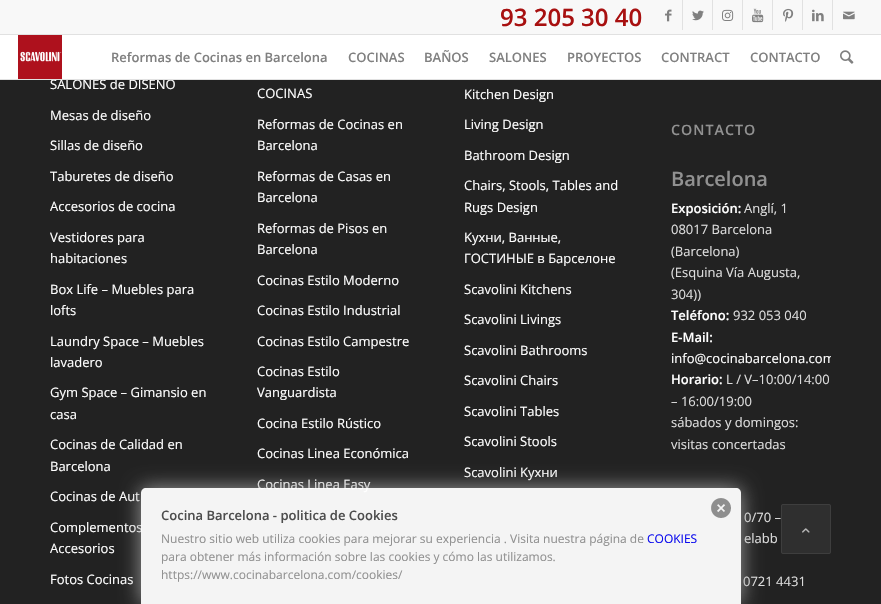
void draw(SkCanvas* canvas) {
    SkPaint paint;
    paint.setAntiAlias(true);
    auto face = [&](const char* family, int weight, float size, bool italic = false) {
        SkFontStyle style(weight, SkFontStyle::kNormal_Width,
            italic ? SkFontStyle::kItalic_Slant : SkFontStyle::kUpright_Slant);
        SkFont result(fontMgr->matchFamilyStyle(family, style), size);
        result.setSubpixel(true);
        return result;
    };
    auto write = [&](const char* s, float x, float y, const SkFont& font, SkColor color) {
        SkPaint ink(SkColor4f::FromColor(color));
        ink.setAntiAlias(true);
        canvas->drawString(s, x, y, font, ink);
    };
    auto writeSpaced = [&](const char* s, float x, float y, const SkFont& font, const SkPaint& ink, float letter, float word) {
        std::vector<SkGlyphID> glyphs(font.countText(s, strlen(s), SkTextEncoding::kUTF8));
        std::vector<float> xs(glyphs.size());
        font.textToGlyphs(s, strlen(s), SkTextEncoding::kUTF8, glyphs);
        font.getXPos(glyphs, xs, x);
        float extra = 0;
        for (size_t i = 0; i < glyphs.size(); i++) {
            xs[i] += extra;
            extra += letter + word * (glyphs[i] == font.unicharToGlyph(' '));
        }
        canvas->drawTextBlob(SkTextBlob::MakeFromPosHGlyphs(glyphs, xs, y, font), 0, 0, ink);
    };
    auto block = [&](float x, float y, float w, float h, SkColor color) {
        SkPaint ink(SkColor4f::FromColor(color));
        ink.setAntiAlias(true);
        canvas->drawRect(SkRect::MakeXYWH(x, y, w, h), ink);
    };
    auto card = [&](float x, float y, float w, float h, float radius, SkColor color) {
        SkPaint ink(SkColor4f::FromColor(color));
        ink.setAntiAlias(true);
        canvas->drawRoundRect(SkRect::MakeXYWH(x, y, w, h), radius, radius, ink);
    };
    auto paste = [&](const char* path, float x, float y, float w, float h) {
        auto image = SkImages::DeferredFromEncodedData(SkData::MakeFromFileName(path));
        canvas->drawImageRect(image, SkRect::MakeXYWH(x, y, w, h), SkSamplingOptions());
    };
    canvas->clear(SkColorSetRGB(34, 34, 34));
    block(0, 0, 881, 34, SkColorSetRGB(248, 248, 248));
    block(0, 34, 881, 1, SkColorSetRGB(225, 225, 225));
    auto kFont1 = face("Open Sans", 600, 24);
    write("93 205 30 40", 500, 26, kFont1, SkColorSetRGB(168, 16, 16));
    block(682, 0, 1, 30, SkColorSetRGB(225, 225, 225));
    paste("pic1.png", 665, 9, 7, 13);
    block(712, 0, 1, 30, SkColorSetRGB(225, 225, 225));
    paste("pic2.png", 692, 10, 12, 11);
    block(742, 0, 1, 30, SkColorSetRGB(225, 225, 225));
    paste("pic3.png", 722, 9, 12, 12);
    block(772, 0, 1, 30, SkColorSetRGB(225, 225, 225));
    paste("pic4.png", 752, 8, 12, 15);
    block(802, 0, 1, 30, SkColorSetRGB(225, 225, 225));
    paste("pic5.png", 783, 8, 11, 14);
    block(832, 0, 1, 30, SkColorSetRGB(225, 225, 225));
    paste("pic6.png", 812, 9, 12, 13);
    paste("pic7.png", 843, 11, 12, 9);
    block(0, 35, 881, 44, SK_ColorWHITE);
    auto kFont2 = face("Open Sans", 400, 13);
    write("SALONES de DISEÑO", 50, 89, kFont2, SK_ColorWHITE);
    block(0, 79, 881, 1, SkColorSetRGB(225, 225, 225));
    paste("pic8.png", 18, 35, 44, 44);
    auto kFont3 = face("Open Sans", 600, 13);
    write("Reformas de Cocinas en Barcelona", 111, 62, kFont3, SkColorSetRGB(128, 128, 128));
    write("COCINAS", 348, 62, kFont3, SkColorSetRGB(128, 128, 128));
    write("BAÑOS", 424, 62, kFont3, SkColorSetRGB(128, 128, 128));
    write("SALONES", 489, 62, kFont3, SkColorSetRGB(128, 128, 128));
    write("PROYECTOS", 567, 62, kFont3, SkColorSetRGB(128, 128, 128));
    write("CONTRACT", 661, 62, kFont3, SkColorSetRGB(128, 128, 128));
    write("CONTACTO", 750, 62, kFont3, SkColorSetRGB(128, 128, 128));
    paste("pic9.png", 840, 50, 14, 14);
    write("Mesas de diseño", 50, 120, kFont2, SK_ColorWHITE);
    write("Sillas de diseño", 50, 150, kFont2, SK_ColorWHITE);
    write("Taburetes de diseño", 50, 181, kFont2, SK_ColorWHITE);
    write("Accesorios de cocina", 50, 211, kFont2, SK_ColorWHITE);
    write("Vestidores para", 50, 242, kFont2, SK_ColorWHITE);
    write("habitaciones", 50, 263, kFont2, SK_ColorWHITE);
    write("Box Life – Muebles para", 50, 294, kFont2, SK_ColorWHITE);
    write("lofts", 50, 315, kFont2, SK_ColorWHITE);
    write("Laundry Space – Muebles", 50, 346, kFont2, SK_ColorWHITE);
    write("lavadero", 50, 367, kFont2, SK_ColorWHITE);
    write("Gym Space – Gimansio en", 50, 397, kFont2, SK_ColorWHITE);
    write("casa", 50, 419, kFont2, SK_ColorWHITE);
    write("Cocinas de Calidad en", 50, 449, kFont2, SK_ColorWHITE);
    write("Barcelona", 50, 471, kFont2, SK_ColorWHITE);
    write("Cocinas de Aut", 50, 501, kFont2, SK_ColorWHITE);
    write("Complementos", 50, 532, kFont2, SK_ColorWHITE);
    write("Accesorios", 50, 553, kFont2, SK_ColorWHITE);
    write("Fotos Cocinas", 50, 584, kFont2, SK_ColorWHITE);
    write("COCINAS", 257, 98, kFont2, SK_ColorWHITE);
    write("Reformas de Cocinas en", 257, 129, kFont2, SK_ColorWHITE);
    write("Barcelona", 257, 150, kFont2, SK_ColorWHITE);
    write("Reformas de Casas en", 257, 181, kFont2, SK_ColorWHITE);
    write("Barcelona", 257, 202, kFont2, SK_ColorWHITE);
    write("Reformas de Pisos en", 257, 233, kFont2, SK_ColorWHITE);
    write("Barcelona", 257, 254, kFont2, SK_ColorWHITE);
    write("Cocinas Estilo Moderno", 257, 285, kFont2, SK_ColorWHITE);
    write("Cocinas Estilo Industrial", 257, 315, kFont2, SK_ColorWHITE);
    write("Cocinas Estilo Campestre", 257, 346, kFont2, SK_ColorWHITE);
    write("Cocinas Estilo", 257, 376, kFont2, SK_ColorWHITE);
    write("Vanguardista", 257, 397, kFont2, SK_ColorWHITE);
    write("Cocina Estilo Rústico", 257, 428, kFont2, SK_ColorWHITE);
    write("Cocinas Linea Económica", 257, 458, kFont2, SK_ColorWHITE);
    write("Cocinas Linea Easy", 257, 489, kFont2, SK_ColorWHITE);
    write("Kitchen Design", 464, 99, kFont2, SK_ColorWHITE);
    write("Living Design", 464, 129, kFont2, SK_ColorWHITE);
    write("Bathroom Design", 464, 160, kFont2, SK_ColorWHITE);
    write("Chairs, Stools, Tables and", 464, 190, kFont2, SK_ColorWHITE);
    write("Rugs Design", 464, 212, kFont2, SK_ColorWHITE);
    write("Kухни, Ванные,", 464, 242, kFont2, SK_ColorWHITE);
    write("ГОСТИНЫЕ в Барселоне", 464, 263, kFont2, SK_ColorWHITE);
    write("Scavolini Kitchens", 464, 294, kFont2, SK_ColorWHITE);
    write("Scavolini Livings", 464, 324, kFont2, SK_ColorWHITE);
    write("Scavolini Bathrooms", 464, 355, kFont2, SK_ColorWHITE);
    write("Scavolini Chairs", 464, 385, kFont2, SK_ColorWHITE);
    write("Scavolini Tables", 464, 416, kFont2, SK_ColorWHITE);
    write("Scavolini Stools", 464, 446, kFont2, SK_ColorWHITE);
    write("Scavolini Kухни", 464, 477, kFont2, SK_ColorWHITE);
    auto kFont4 = face("Open Sans", 600, 14.25f);
    paint.setColor(SkColorSetRGB(145, 145, 145));
    writeSpaced("CONTACTO", 671, 135, kFont4, paint, 1, 0);
    auto kFont5 = face("Open Sans", 600, 20);
    write("Barcelona", 671, 186, kFont5, SkColorSetRGB(145, 145, 145));
    write("Exposición:", 671, 213, kFont3, SK_ColorWHITE);
    write("Anglí, 1", 744, 213, kFont2, SkColorSetRGB(221, 221, 221));
    write("08017 Barcelona", 671, 234, kFont2, SkColorSetRGB(221, 221, 221));
    write("(Barcelona)", 671, 256, kFont2, SkColorSetRGB(221, 221, 221));
    write("(Esquina Vía Augusta,", 671, 277, kFont2, SkColorSetRGB(221, 221, 221));
    write("304))", 671, 299, kFont2, SkColorSetRGB(221, 221, 221));
    write("Teléfono:", 671, 320, kFont3, SK_ColorWHITE);
    write("932 053 040", 733, 320, kFont2, SkColorSetRGB(221, 221, 221));
    write("E-Mail:", 671, 342, kFont3, SK_ColorWHITE);
    canvas->save();
    canvas->clipRect(SkRect::MakeXYWH(671, 168, 160, 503));
    write("info@cocinabarcelona.com", 671, 363, kFont2, SK_ColorWHITE);
    canvas->restore();
    write("Horario:", 671, 384, kFont3, SK_ColorWHITE);
    write("L / V–10:00/14:00", 726, 384, kFont2, SkColorSetRGB(221, 221, 221));
    write("– 16:00/19:00", 671, 406, kFont2, SkColorSetRGB(221, 221, 221));
    write("sábados y domingos:", 671, 427, kFont2, SkColorSetRGB(221, 221, 221));
    write("visitas concertadas", 671, 449, kFont2, SkColorSetRGB(221, 221, 221));
    write("0/70 –", 744, 522, kFont2, SkColorSetRGB(221, 221, 221));
    write("elabb", 744, 543, kFont2, SkColorSetRGB(221, 221, 221));
    write("0721 4431", 743, 586, kFont2, SkColorSetRGB(221, 221, 221));
    canvas->save();
    canvas->clipPath(SkPathBuilder(SkPathFillType::kEvenOdd).moveTo(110, 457).lineTo(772, 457).lineTo(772, 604).lineTo(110, 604).close().moveTo(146, 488).lineTo(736, 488).cubicTo(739, 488, 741, 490, 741, 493).lineTo(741, 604).lineTo(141, 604).lineTo(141, 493).cubicTo(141, 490, 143, 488, 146, 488).close().detach(), true);
    paint.setColor(SkColorSetARGB(242, 161, 161, 161));
    paint.setMaskFilter(SkMaskFilter::MakeBlur(kNormal_SkBlurStyle, 10));
    canvas->drawRoundRect(SkRect::MakeXYWH(141, 488, 600, 116), 5, 5, paint);
    paint.setMaskFilter(nullptr);
    canvas->restore();
    paint.setColor(SkColorSetARGB(242, 255, 255, 255));
    canvas->drawPath(SkPathBuilder().moveTo(146, 488).lineTo(736, 488).cubicTo(739, 488, 741, 490, 741, 493).lineTo(741, 604).lineTo(141, 604).lineTo(141, 493).cubicTo(141, 490, 143, 488, 146, 488).close().detach(), paint);
    write("Cocina Barcelona - politica de Cookies", 161, 520, kFont3, SkColorSetRGB(77, 77, 77));
    paste("pic10.png", 711, 498, 20, 20);
    auto kFont6 = face("Open Sans", 400, 12);
    write("Nuestro sitio web utiliza cookies para mejorar su experiencia . Visita nuestra página de", 161, 543, kFont6, SkColorSetRGB(145, 145, 145));
    write("COOKIES", 647, 543, kFont6, SkColorSetRGB(12, 12, 238));
    write("para obtener más información sobre las cookies y cómo las utilizamos.", 161, 561, kFont6, SkColorSetRGB(145, 145, 145));
    write("https://www.cocinabarcelona.com/cookies/", 161, 579, kFont6, SkColorSetRGB(145, 145, 145));
    card(781, 504, 50, 50, 2, SkColorSetARGB(179, 51, 51, 51));
    paint.setStyle(SkPaint::kStroke_Style);
    paint.setStrokeWidth(1);
    paint.setColor(SkColorSetARGB(179, 68, 68, 68));
    canvas->drawRoundRect(SkRect::MakeXYWH(781.5f, 504.5f, 49, 49), 1.5f, 1.5f, paint);
    paste("pic11.png", 802, 528, 8, 5);
}
